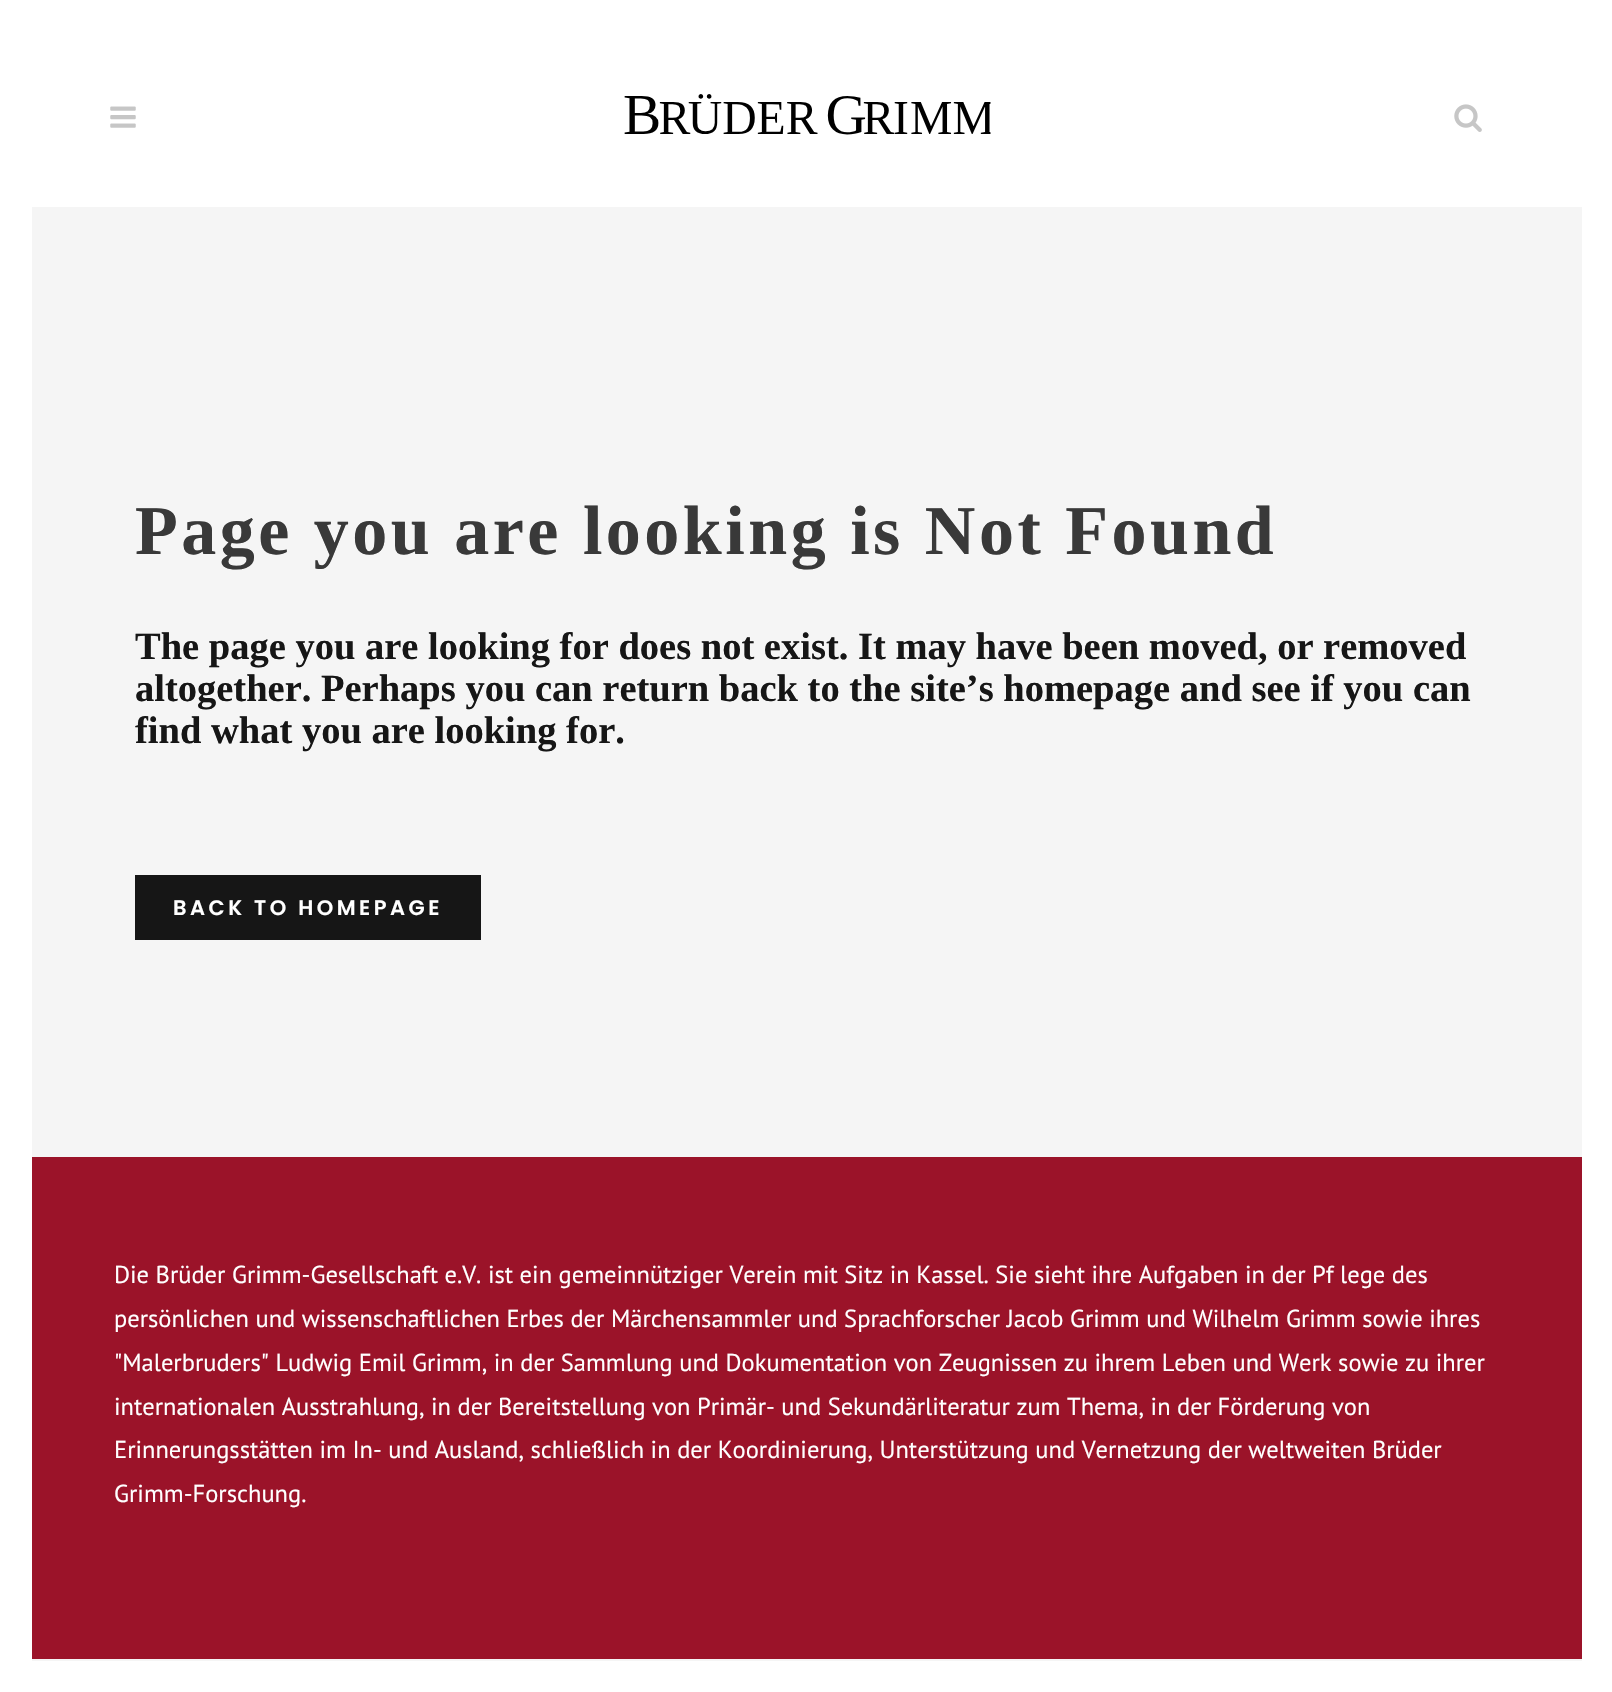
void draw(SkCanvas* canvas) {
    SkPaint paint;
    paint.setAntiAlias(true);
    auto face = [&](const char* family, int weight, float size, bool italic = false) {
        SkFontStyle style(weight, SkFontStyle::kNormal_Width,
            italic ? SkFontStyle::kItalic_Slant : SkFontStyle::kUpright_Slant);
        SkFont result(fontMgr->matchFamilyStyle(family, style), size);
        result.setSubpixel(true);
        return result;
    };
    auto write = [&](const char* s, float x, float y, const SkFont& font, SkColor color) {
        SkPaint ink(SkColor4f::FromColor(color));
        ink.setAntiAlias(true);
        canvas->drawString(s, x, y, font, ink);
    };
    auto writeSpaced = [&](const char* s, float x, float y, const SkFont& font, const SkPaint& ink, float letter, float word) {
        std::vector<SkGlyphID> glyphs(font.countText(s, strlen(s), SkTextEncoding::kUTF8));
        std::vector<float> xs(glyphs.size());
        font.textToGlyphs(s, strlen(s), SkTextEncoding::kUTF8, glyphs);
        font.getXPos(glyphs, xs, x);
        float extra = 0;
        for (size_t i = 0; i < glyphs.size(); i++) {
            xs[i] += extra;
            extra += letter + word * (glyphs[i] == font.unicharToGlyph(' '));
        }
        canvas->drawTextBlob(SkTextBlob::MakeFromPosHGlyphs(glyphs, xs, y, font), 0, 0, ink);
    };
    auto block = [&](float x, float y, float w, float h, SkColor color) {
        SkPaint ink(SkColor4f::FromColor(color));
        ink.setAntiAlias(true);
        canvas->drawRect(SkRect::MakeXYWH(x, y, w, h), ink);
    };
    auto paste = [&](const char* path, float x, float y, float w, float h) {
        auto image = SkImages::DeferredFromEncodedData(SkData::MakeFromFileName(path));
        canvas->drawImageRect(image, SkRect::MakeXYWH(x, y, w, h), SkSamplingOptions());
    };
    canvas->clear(SkColorSetRGB(245, 245, 245));
    block(0, 0, 32, 1692, SK_ColorWHITE);
    block(32, 0, 1550, 207, SK_ColorWHITE);
    paste("pic1.png", 110, 106, 26, 22);
    paste("pic2.png", 624, 94, 367, 41);
    paste("pic3.png", 1454, 104, 28, 28);
    block(1582, 0, 30, 1692, SK_ColorWHITE);
    auto kFont1 = face("Liberation Serif", 700, 70);
    paint.setColor(SkColorSetRGB(57, 57, 57));
    writeSpaced("Page you are looking is Not Found", 135, 554, kFont1, paint, 3.5f, 0);
    auto kFont2 = face("Liberation Serif", 700, 38.5f);
    write("The page you are looking for does not exist. It may have been moved, or removed", 135, 659, kFont2, SkColorSetRGB(22, 22, 22));
    write("altogether. Perhaps you can return back to the site’s homepage and see if you can", 135, 701, kFont2, SkColorSetRGB(22, 22, 22));
    write("find what you are looking for.", 135, 743, kFont2, SkColorSetRGB(22, 22, 22));
    block(135, 875, 346, 65, SkColorSetRGB(22, 22, 22));
    auto kFont3 = face("Poppins", 600, 21);
    paint.setColor(SK_ColorWHITE);
    writeSpaced("BACK TO HOMEPAGE", 173, 915, kFont3, paint, 3.5f, 0);
    block(32, 1157, 1550, 502, SkColorSetRGB(155, 19, 41));
    auto kFont4 = face("PT Sans", 400, 24.5f);
    write("Die Brüder Grimm-Gesellschaft e.V. ist ein gemeinnütziger Verein mit Sitz in Kassel. Sie sieht ihre Aufgaben in der Pf lege des", 114, 1283, kFont4, SK_ColorWHITE);
    write("persönlichen und wissenschaftlichen Erbes der Märchensammler und Sprachforscher Jacob Grimm und Wilhelm Grimm sowie ihres", 114, 1327, kFont4, SK_ColorWHITE);
    write("\"Malerbruders\" Ludwig Emil Grimm, in der Sammlung und Dokumentation von Zeugnissen zu ihrem Leben und Werk sowie zu ihrer", 114, 1371, kFont4, SK_ColorWHITE);
    write("internationalen Ausstrahlung, in der Bereitstellung von Primär- und Sekundärliteratur zum Thema, in der Förderung von", 114, 1415, kFont4, SK_ColorWHITE);
    write("Erinnerungsstätten im In- und Ausland, schließlich in der Koordinierung, Unterstützung und Vernetzung der weltweiten Brüder", 114, 1458, kFont4, SK_ColorWHITE);
    write("Grimm-Forschung.", 114, 1502, kFont4, SK_ColorWHITE);
    block(32, 1661, 1550, 31, SK_ColorWHITE);
}
